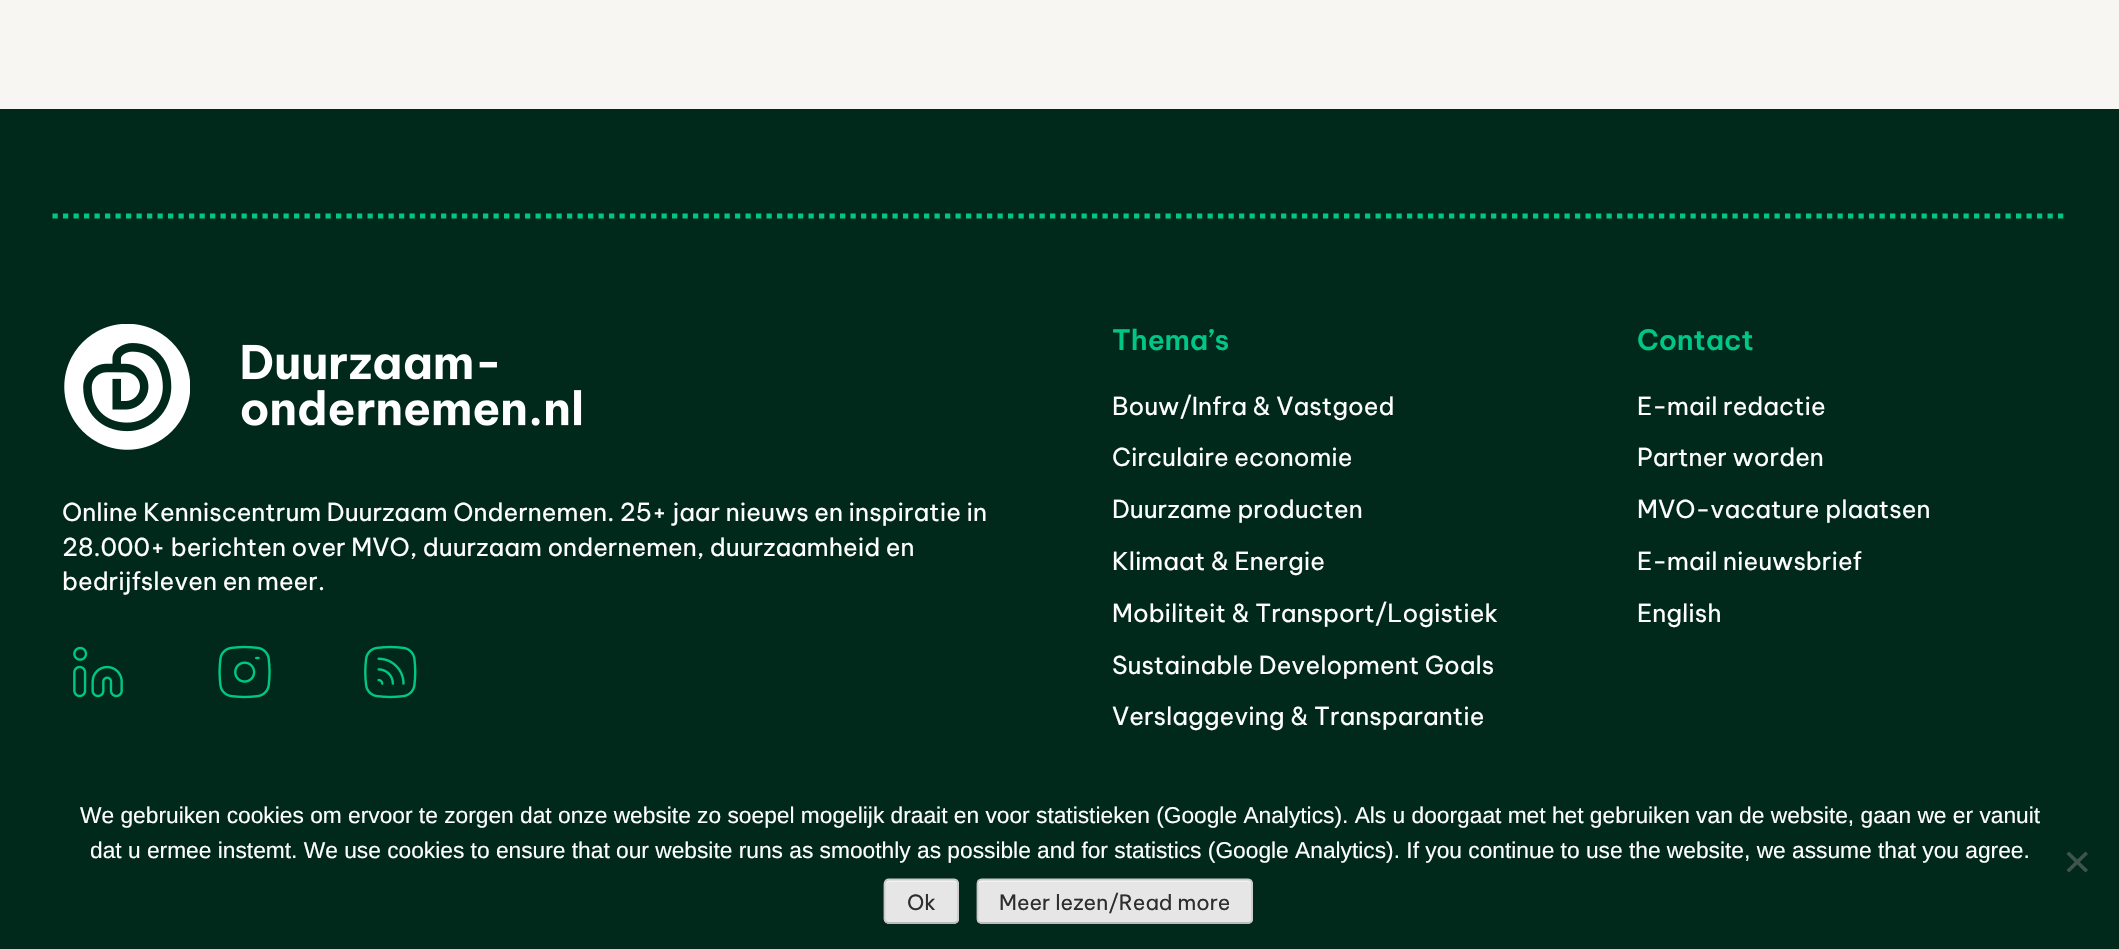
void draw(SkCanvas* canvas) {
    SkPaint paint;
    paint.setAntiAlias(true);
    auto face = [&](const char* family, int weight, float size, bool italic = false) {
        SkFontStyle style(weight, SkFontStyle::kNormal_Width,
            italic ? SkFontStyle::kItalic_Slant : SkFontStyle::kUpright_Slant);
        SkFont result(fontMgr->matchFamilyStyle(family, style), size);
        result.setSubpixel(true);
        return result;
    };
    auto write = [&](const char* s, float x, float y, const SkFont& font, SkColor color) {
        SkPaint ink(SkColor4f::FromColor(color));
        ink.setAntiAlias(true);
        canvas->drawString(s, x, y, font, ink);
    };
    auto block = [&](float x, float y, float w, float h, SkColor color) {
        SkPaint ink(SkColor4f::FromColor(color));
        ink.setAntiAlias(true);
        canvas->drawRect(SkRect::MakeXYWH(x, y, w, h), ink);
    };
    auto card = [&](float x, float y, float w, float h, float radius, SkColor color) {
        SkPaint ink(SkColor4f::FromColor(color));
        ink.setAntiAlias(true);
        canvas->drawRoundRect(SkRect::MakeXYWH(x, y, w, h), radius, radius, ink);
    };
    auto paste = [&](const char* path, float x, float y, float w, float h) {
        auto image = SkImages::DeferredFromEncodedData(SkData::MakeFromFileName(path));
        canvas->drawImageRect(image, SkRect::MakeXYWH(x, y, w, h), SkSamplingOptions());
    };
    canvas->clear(SkColorSetRGB(247, 246, 242));
    block(0, 109, 2119, 840, SkColorSetRGB(0, 40, 27));
    paint.setStyle(SkPaint::kStroke_Style);
    paint.setStrokeWidth(5.2f);
    paint.setColor(SkColorSetRGB(0, 199, 133));
    paint.setPathEffect(SkDashPathEffect::Make({{5.25f, 5.25f}}, 0));
    canvas->drawPath(SkPathBuilder().moveTo(52.5f, 216).lineTo(2067, 216).detach(), paint);
    paint.setPathEffect(nullptr);
    paste("pic1.png", 64, 324, 518, 126);
    auto kFont1 = face("Be Vietnam Pro", 400, 24.5f);
    write("Online Kenniscentrum Duurzaam Ondernemen. 25+ jaar nieuws en inspiratie in", 62, 521, kFont1, SK_ColorWHITE);
    write("28.000+ berichten over MVO, duurzaam ondernemen, duurzaamheid en", 62, 556, kFont1, SK_ColorWHITE);
    write("bedrijfsleven en meer.", 62, 590, kFont1, SK_ColorWHITE);
    paste("pic2.png", 73, 646, 50, 52);
    paste("pic3.png", 218, 645, 53, 54);
    paste("pic4.png", 364, 645, 53, 54);
    auto kFont2 = face("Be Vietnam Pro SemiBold", 600, 28);
    write("Thema’s", 1112, 350, kFont2, SkColorSetRGB(0, 199, 133));
    write("Bouw/Infra & Vastgoed", 1112, 415, kFont1, SK_ColorWHITE);
    write("Circulaire economie", 1112, 466, kFont1, SK_ColorWHITE);
    write("Duurzame producten", 1112, 518, kFont1, SK_ColorWHITE);
    write("Klimaat & Energie", 1112, 570, kFont1, SK_ColorWHITE);
    write("Mobiliteit & Transport/Logistiek", 1112, 622, kFont1, SK_ColorWHITE);
    write("Sustainable Development Goals", 1112, 674, kFont1, SK_ColorWHITE);
    write("Verslaggeving & Transparantie", 1112, 725, kFont1, SK_ColorWHITE);
    write("Contact", 1637, 350, kFont2, SkColorSetRGB(0, 199, 133));
    write("E-mail redactie", 1637, 415, kFont1, SK_ColorWHITE);
    write("Partner worden", 1637, 466, kFont1, SK_ColorWHITE);
    write("MVO-vacature plaatsen", 1637, 518, kFont1, SK_ColorWHITE);
    write("E-mail nieuwsbrief", 1637, 570, kFont1, SK_ColorWHITE);
    write("English", 1637, 622, kFont1, SK_ColorWHITE);
    auto kFont3 = face("Liberation Sans", 400, 22.75f);
    write("We gebruiken cookies om ervoor te zorgen dat onze website zo soepel mogelijk draait en voor statistieken (Google Analytics). Als u doorgaat met het gebruiken van de website, gaan we er vanuit", 80, 823, kFont3, SK_ColorWHITE);
    write("dat u ermee instemt. We use cookies to ensure that our website runs as smoothly as possible and for statistics (Google Analytics). If you continue to use the website, we assume that you agree.", 90, 858, kFont3, SK_ColorWHITE);
    paint.setStyle(SkPaint::kFill_Style);
    paint.setColor(SkColorSetRGB(64, 84, 78));
    canvas->drawPath(SkPathBuilder().moveTo(2085.5f, 851.5f).lineTo(2088, 854).lineTo(2069, 872.5f).lineTo(2066.5f, 870).close().detach(), paint);
    canvas->drawPath(SkPathBuilder().moveTo(2066.5f, 854).lineTo(2069, 851.5f).lineTo(2088, 870).lineTo(2085.5f, 872.5f).close().detach(), paint);
    card(884, 879, 75, 45, 5, SkColorSetRGB(230, 230, 230));
    paint.setColor(SkColorSetRGB(243, 243, 243));
    canvas->drawPath(SkPathBuilder().moveTo(889, 882).lineTo(954, 882).cubicTo(956, 882, 957, 884, 957, 886).cubicTo(957, 877, 950, 880, 942, 880).lineTo(900, 880).cubicTo(893, 880, 886, 877, 886, 886).cubicTo(886, 884, 887, 882, 889, 882).close().detach(), paint);
    paint.setStyle(SkPaint::kStroke_Style);
    paint.setStrokeWidth(1.8f);
    paint.setColor(SkColorSetRGB(187, 187, 187));
    canvas->drawPath(SkPathBuilder().moveTo(957, 922).lineTo(954, 923).lineTo(888.5f, 923).lineTo(886, 922).detach(), paint);
    paint.setColor(SkColorSetRGB(204, 204, 204));
    canvas->drawPath(SkPathBuilder().moveTo(886, 922).cubicTo(885, 921, 884.5f, 920, 884.5f, 919).lineTo(884.5f, 884).cubicTo(884.5f, 882.5f, 885, 881.5f, 886, 880.5f).cubicTo(886.5f, 880, 888, 879.5f, 889, 879.5f).lineTo(954, 879.5f).cubicTo(955, 879.5f, 956, 880, 957, 880.5f).cubicTo(957.5f, 881.5f, 958, 882.5f, 958, 884).lineTo(958, 919).cubicTo(958, 920, 957.5f, 921, 957, 922).detach(), paint);
    auto kFont4 = face("Be Vietnam Pro", 400, 21);
    write("Ok", 907, 910, kFont4, SkColorSetRGB(46, 46, 46));
    card(977, 879, 276, 45, 5, SkColorSetRGB(230, 230, 230));
    paint.setStyle(SkPaint::kFill_Style);
    paint.setColor(SkColorSetRGB(243, 243, 243));
    canvas->drawPath(SkPathBuilder().moveTo(982, 882).lineTo(1248, 882).cubicTo(1250, 882, 1251, 884, 1251, 886).cubicTo(1251, 883, 1251, 880, 1247, 880).lineTo(982, 880).cubicTo(978, 880, 978, 883, 978, 886).cubicTo(978, 884, 980, 882, 982, 882).close().detach(), paint);
    paint.setStyle(SkPaint::kStroke_Style);
    paint.setColor(SkColorSetRGB(187, 187, 187));
    canvas->drawPath(SkPathBuilder().moveTo(1251, 922).cubicTo(1250, 922.5f, 1249, 923, 1248, 923).lineTo(982, 923).cubicTo(980.5f, 923, 979.5f, 922.5f, 978.5f, 922).detach(), paint);
    paint.setColor(SkColorSetRGB(204, 204, 204));
    canvas->drawPath(SkPathBuilder().moveTo(978.5f, 922).cubicTo(978, 921, 977.5f, 920, 977.5f, 919).lineTo(977.5f, 884).cubicTo(977.5f, 882.5f, 978, 881.5f, 978.5f, 880.5f).cubicTo(979.5f, 880, 980.5f, 879.5f, 982, 879.5f).lineTo(1248, 879.5f).cubicTo(1249, 879.5f, 1250, 880, 1251, 880.5f).cubicTo(1251.5f, 881.5f, 1252, 882.5f, 1252, 884).lineTo(1252, 919).cubicTo(1252, 920, 1251.5f, 921, 1251, 922).detach(), paint);
    write("Meer lezen/Read more", 999, 910, kFont4, SkColorSetRGB(46, 46, 46));
}
